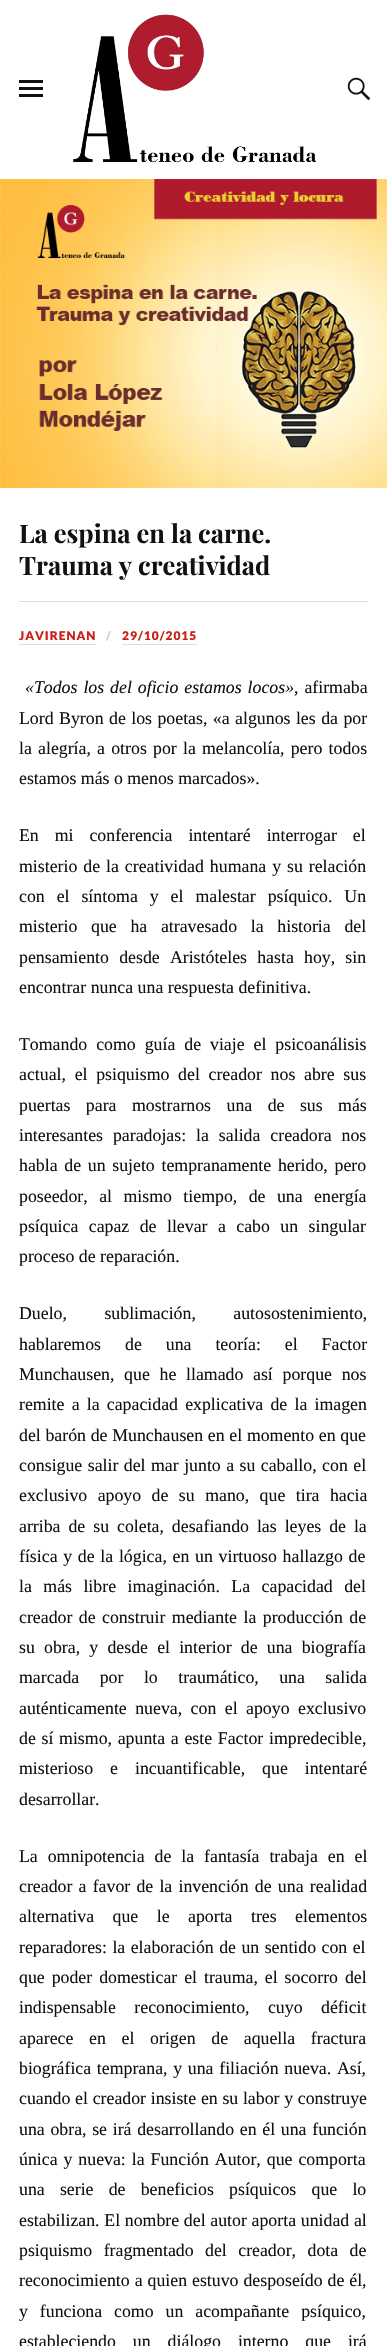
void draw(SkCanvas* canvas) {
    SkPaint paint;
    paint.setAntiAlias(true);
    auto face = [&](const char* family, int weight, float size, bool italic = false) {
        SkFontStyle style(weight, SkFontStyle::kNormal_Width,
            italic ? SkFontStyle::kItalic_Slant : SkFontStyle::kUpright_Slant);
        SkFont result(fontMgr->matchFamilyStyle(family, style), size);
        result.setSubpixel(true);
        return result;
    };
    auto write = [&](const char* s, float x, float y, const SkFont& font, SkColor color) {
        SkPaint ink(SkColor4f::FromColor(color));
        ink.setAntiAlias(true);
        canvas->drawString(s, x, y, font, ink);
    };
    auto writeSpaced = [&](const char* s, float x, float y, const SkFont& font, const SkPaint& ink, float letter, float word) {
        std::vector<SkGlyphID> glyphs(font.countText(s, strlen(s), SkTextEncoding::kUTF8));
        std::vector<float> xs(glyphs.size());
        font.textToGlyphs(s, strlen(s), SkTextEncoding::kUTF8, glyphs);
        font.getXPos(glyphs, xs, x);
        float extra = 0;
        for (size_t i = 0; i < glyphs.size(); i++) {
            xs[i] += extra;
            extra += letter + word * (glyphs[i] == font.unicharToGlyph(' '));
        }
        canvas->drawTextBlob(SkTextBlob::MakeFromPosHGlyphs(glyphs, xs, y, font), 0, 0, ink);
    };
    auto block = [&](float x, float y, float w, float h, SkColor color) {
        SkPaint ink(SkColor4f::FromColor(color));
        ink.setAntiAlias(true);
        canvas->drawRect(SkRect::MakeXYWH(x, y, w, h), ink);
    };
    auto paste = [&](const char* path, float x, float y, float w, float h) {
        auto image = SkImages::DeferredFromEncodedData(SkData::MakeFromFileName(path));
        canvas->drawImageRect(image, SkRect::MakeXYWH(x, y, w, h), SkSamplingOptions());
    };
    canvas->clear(SK_ColorWHITE);
    paste("pic1.png", 73, 14, 244, 149);
    block(19, 80, 24, 3, SkColorSetRGB(17, 17, 17));
    block(19, 87, 24, 3, SkColorSetRGB(17, 17, 17));
    block(19, 94, 24, 3, SkColorSetRGB(17, 17, 17));
    paste("pic2.png", 347, 77, 24, 24);
    paste("pic3.png", 0, 179, 387, 309);
    auto kFont1 = face("Playfair Display", 700, 25.5f);
    write("La espina en la carne.", 19, 543, kFont1, SkColorSetRGB(17, 17, 17));
    write("Trauma y creatividad", 19, 575, kFont1, SkColorSetRGB(17, 17, 17));
    block(19, 601, 349, 1, SkColorSetRGB(221, 221, 221));
    auto kFont2 = face("Lato", 900, 12);
    paint.setColor(SkColorSetRGB(202, 32, 23));
    writeSpaced("JAVIRENAN", 19, 640, kFont2, paint, 1, 0);
    block(19, 644, 77, 1, SkColorSetRGB(221, 221, 221));
    paint.setColor(SkColorSetRGB(204, 204, 204));
    writeSpaced("/", 106, 640, kFont2, paint, 1, 0);
    paint.setColor(SkColorSetRGB(202, 32, 23));
    writeSpaced("29/10/2015", 122, 640, kFont2, paint, 1, 0);
    block(122, 644, 75, 1, SkColorSetRGB(221, 221, 221));
    auto kFont3 = face("Liberation Serif", 400, 17.8f, true);
    paint.setColor(SkColorSetRGB(17, 17, 17));
    writeSpaced("«Todos los del oficio estamos locos»", 25, 693, kFont3, paint, 0, 1.5f);
    auto kFont4 = face("Liberation Serif", 400, 17.8f);
    writeSpaced(", afirmaba", 294, 693, kFont4, paint, 0, 1.5f);
    writeSpaced("Lord Byron de los poetas, «a algunos les da por", 19, 724, kFont4, paint, 0, 1);
    writeSpaced("la alegría, a otros por la melancolía, pero todos", 19, 754, kFont4, paint, 0, 1.75f);
    write("estamos más o menos marcados».", 19, 784, kFont4, SkColorSetRGB(17, 17, 17));
    writeSpaced("En mi conferencia intentaré interrogar el", 19, 841, kFont4, paint, 0, 11.5f);
    writeSpaced("misterio de la creatividad humana y su relación", 19, 872, kFont4, paint, 0, 1.5f);
    writeSpaced("con el síntoma y el malestar psíquico. Un", 19, 902, kFont4, paint, 0, 7.5f);
    writeSpaced("misterio que ha atravesado la historia del", 19, 932, kFont4, paint, 0, 9.25f);
    writeSpaced("pensamiento desde Aristóteles hasta hoy, sin", 19, 963, kFont4, paint, 0, 5.75f);
    write("encontrar nunca una respuesta definitiva.", 19, 993, kFont4, SkColorSetRGB(17, 17, 17));
    writeSpaced("Tomando como guía de viaje el psicoanálisis", 19, 1050, kFont4, paint, 0, 4.5f);
    writeSpaced("actual, el psiquismo del creador nos abre sus", 19, 1080, kFont4, paint, 0, 4.25f);
    writeSpaced("puertas para mostrarnos una de sus más", 19, 1111, kFont4, paint, 0, 11);
    writeSpaced("interesantes paradojas: la salida creadora nos", 19, 1141, kFont4, paint, 0, 5.5f);
    writeSpaced("habla de un sujeto tempranamente herido, pero", 19, 1171, kFont4, paint, 0, 2.25f);
    writeSpaced("poseedor, al mismo tiempo, de una energía", 19, 1202, kFont4, paint, 0, 7);
    writeSpaced("psíquica capaz de llevar a cabo un singular", 19, 1232, kFont4, paint, 0, 6);
    write("proceso de reparación.", 19, 1262, kFont4, SkColorSetRGB(17, 17, 17));
    writeSpaced("Duelo, sublimación, autosostenimiento,", 19, 1319, kFont4, paint, 0, 33);
    writeSpaced("hablaremos de una teoría: el Factor", 19, 1350, kFont4, paint, 0, 19.5f);
    writeSpaced("Munchausen, que he llamado así porque nos", 19, 1380, kFont4, paint, 0, 5.25f);
    writeSpaced("remite a la capacidad explicativa de la imagen", 19, 1410, kFont4, paint, 0, 2.75f);
    writeSpaced("del barón de Munchausen en el momento en que", 19, 1441, kFont4, paint, 0, 0.25f);
    writeSpaced("consigue salir del mar junto a su caballo, con el", 19, 1471, kFont4, paint, 0, 1);
    writeSpaced("exclusivo apoyo de su mano, que tira hacia", 19, 1501, kFont4, paint, 0, 6);
    writeSpaced("arriba de su coleta, desafiando las leyes de la", 19, 1532, kFont4, paint, 0, 3.5f);
    writeSpaced("física y de la lógica, en un virtuoso hallazgo de", 19, 1562, kFont4, paint, 0, 1.25f);
    writeSpaced("la más libre imaginación. La capacidad del", 19, 1592, kFont4, paint, 0, 7);
    writeSpaced("creador de construir mediante la producción de", 19, 1623, kFont4, paint, 0, 2);
    writeSpaced("su obra, y desde el interior de una biografía", 19, 1653, kFont4, paint, 0, 4.75f);
    writeSpaced("marcada por lo traumático, una salida", 19, 1683, kFont4, paint, 0, 16);
    writeSpaced("auténticamente nueva, con el apoyo exclusivo", 19, 1714, kFont4, paint, 0, 4);
    writeSpaced("de sí mismo, apunta a este Factor impredecible,", 19, 1744, kFont4, paint, 0, 1.25f);
    writeSpaced("misterioso e incuantificable, que intentaré", 19, 1774, kFont4, paint, 0, 12.5f);
    write("desarrollar.", 19, 1805, kFont4, SkColorSetRGB(17, 17, 17));
    writeSpaced("La omnipotencia de la fantasía trabaja en el", 19, 1862, kFont4, paint, 0, 5.5f);
    writeSpaced("creador a favor de la invención de una realidad", 19, 1892, kFont4, paint, 0, 1.75f);
    writeSpaced("alternativa que le aporta tres elementos", 19, 1922, kFont4, paint, 0, 14);
    writeSpaced("reparadores: la elaboración de un sentido con el", 19, 1953, kFont4, paint, 0, 1);
    writeSpaced("que poder domesticar el trauma, el socorro del", 19, 1983, kFont4, paint, 0, 2.5f);
    writeSpaced("indispensable reconocimiento, cuyo déficit", 19, 2013, kFont4, paint, 0, 14);
    writeSpaced("aparece en el origen de aquella fractura", 19, 2044, kFont4, paint, 0, 11.25f);
    writeSpaced("biográfica temprana, y una filiación nueva. Así,", 19, 2074, kFont4, paint, 0, 1.25f);
    writeSpaced("cuando el creador insiste en su labor y construye", 19, 2104, kFont4, paint, 0, 0.25f);
    writeSpaced("una obra, se irá desarrollando en él una función", 19, 2135, kFont4, paint, 0, 1.25f);
    writeSpaced("única y nueva: la Función Autor, que comporta", 19, 2165, kFont4, paint, 0, 1.5f);
    writeSpaced("una serie de beneficios psíquicos que lo", 19, 2195, kFont4, paint, 0, 10.75f);
    writeSpaced("estabilizan. El nombre del autor aporta unidad al", 19, 2226, kFont4, paint, 0, 0.25f);
    writeSpaced("psiquismo fragmentado del creador, dota de", 19, 2256, kFont4, paint, 0, 7);
    writeSpaced("reconocimiento a quien estuvo desposeído de él,", 19, 2286, kFont4, paint, 0, 0.5f);
    writeSpaced("y funciona como un acompañante psíquico,", 19, 2317, kFont4, paint, 0, 7.5f);
    writeSpaced("estableciendo un diálogo interno que irá", 19, 2347, kFont4, paint, 0, 12.5f);
}
